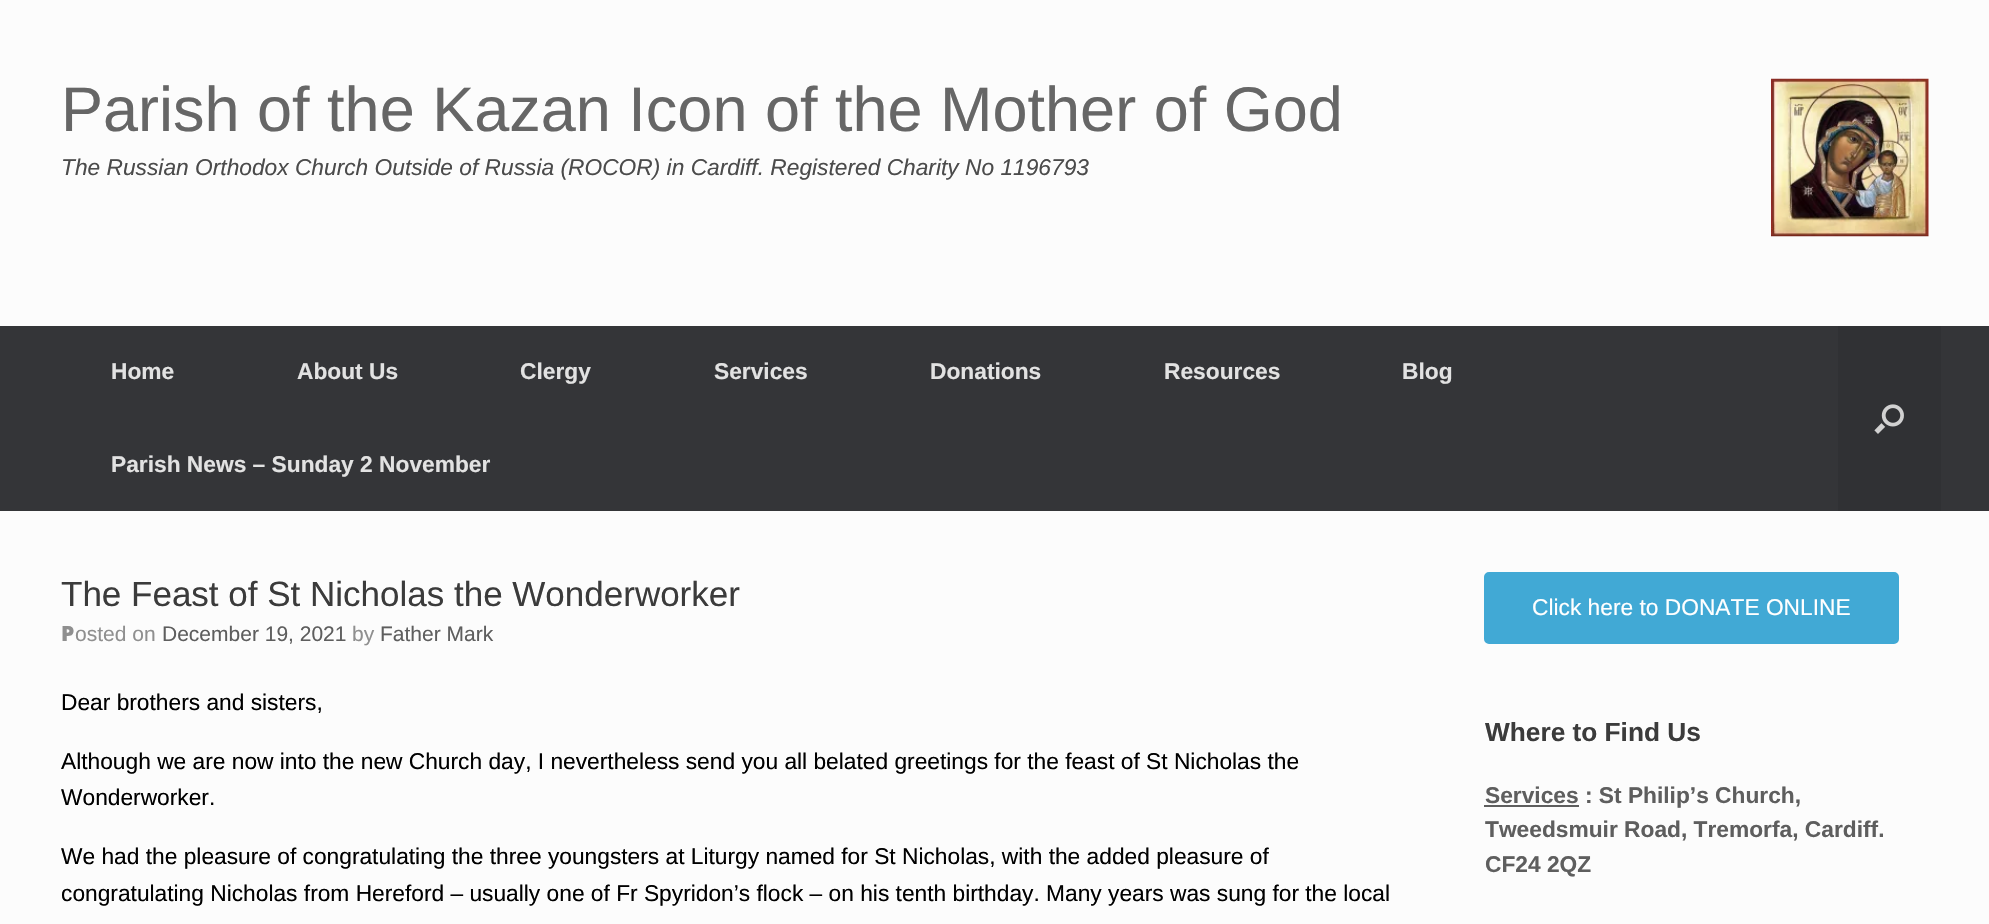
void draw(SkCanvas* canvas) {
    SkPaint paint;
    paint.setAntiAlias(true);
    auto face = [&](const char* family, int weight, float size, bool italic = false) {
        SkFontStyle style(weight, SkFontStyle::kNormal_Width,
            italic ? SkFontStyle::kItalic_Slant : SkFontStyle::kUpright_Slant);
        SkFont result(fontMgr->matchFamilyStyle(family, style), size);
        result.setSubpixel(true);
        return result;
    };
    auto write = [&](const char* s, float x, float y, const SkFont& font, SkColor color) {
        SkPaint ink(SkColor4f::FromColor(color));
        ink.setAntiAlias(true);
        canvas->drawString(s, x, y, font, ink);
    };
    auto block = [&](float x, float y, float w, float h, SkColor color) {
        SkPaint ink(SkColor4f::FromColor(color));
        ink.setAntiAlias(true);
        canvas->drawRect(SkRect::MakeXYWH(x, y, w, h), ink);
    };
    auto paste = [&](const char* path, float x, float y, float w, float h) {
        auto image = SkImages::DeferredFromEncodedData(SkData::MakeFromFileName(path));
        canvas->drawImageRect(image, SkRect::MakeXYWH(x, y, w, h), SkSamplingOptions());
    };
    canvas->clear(SkColorSetRGB(252, 252, 252));
    auto kFont1 = face("Liberation Sans", 400, 63);
    write("Parish of the Kazan Icon of the Mother of God", 61, 131, kFont1, SkColorSetRGB(102, 102, 102));
    auto kFont2 = face("Liberation Sans", 400, 22.75f, true);
    write("The Russian Orthodox Church Outside of Russia (ROCOR) in Cardiff. Registered Charity No 1196793", 61, 175, kFont2, SkColorSetRGB(75, 75, 75));
    paste("pic1.png", 1771, 78, 158, 159);
    block(0, 326, 1989, 185, SkColorSetRGB(52, 53, 56));
    auto kFont3 = face("Liberation Sans", 700, 22.75f);
    write("Home", 111, 379, kFont3, SkColorSetRGB(226, 226, 226));
    write("About Us", 297, 379, kFont3, SkColorSetRGB(226, 226, 226));
    write("Clergy", 520, 379, kFont3, SkColorSetRGB(226, 226, 226));
    write("Services", 714, 379, kFont3, SkColorSetRGB(226, 226, 226));
    write("Donations", 930, 379, kFont3, SkColorSetRGB(226, 226, 226));
    write("Resources", 1164, 379, kFont3, SkColorSetRGB(226, 226, 226));
    write("Blog", 1402, 379, kFont3, SkColorSetRGB(226, 226, 226));
    write("Parish News – Sunday 2 November", 111, 472, kFont3, SkColorSetRGB(226, 226, 226));
    block(1838, 326, 103, 185, SkColorSetRGB(48, 49, 52));
    paste("pic2.png", 1874, 404, 30, 30);
    auto kFont4 = face("Liberation Sans", 400, 35);
    write("The Feast of St Nicholas the Wonderworker", 61, 606, kFont4, SkColorSetRGB(59, 59, 59));
    auto kFont5 = face("Noto Sans", 900, 21);
    write("P", 61, 641, kFont5, SkColorSetRGB(143, 143, 143));
    auto kFont6 = face("Liberation Sans", 400, 21);
    write("osted on", 75, 641, kFont6, SkColorSetRGB(143, 143, 143));
    write("December 19, 2021", 162, 641, kFont6, SkColorSetRGB(94, 94, 94));
    write("by", 352, 641, kFont6, SkColorSetRGB(143, 143, 143));
    write("Father Mark", 380, 641, kFont6, SkColorSetRGB(94, 94, 94));
    auto kFont7 = face("Liberation Sans", 400, 22.75f);
    write("Dear brothers and sisters,", 61, 710, kFont7, SK_ColorBLACK);
    write("Although we are now into the new Church day, I nevertheless send you all belated greetings for the feast of St Nicholas the", 61, 769, kFont7, SK_ColorBLACK);
    write("Wonderworker.", 61, 805, kFont7, SK_ColorBLACK);
    write("We had the pleasure of congratulating the three youngsters at Liturgy named for St Nicholas, with the added pleasure of", 61, 864, kFont7, SK_ColorBLACK);
    write("congratulating Nicholas from Hereford – usually one of Fr Spyridon’s flock – on his tenth birthday. Many years was sung for the local", 61, 901, kFont7, SK_ColorBLACK);
    paint.setColor(SkColorSetRGB(65, 169, 213));
    canvas->drawRoundRect(SkRect::MakeXYWH(1485, 573, 413, 70), 4, 4, paint);
    paint.setStyle(SkPaint::kStroke_Style);
    paint.setStrokeWidth(2);
    canvas->drawRoundRect(SkRect::MakeXYWH(1485, 573, 413, 70), 4, 4, paint);
    write("Click here to DONATE ONLINE", 1532, 615, kFont7, SK_ColorWHITE);
    auto kFont8 = face("Liberation Sans", 700, 26.25f);
    write("Where to Find Us", 1485, 741, kFont8, SkColorSetRGB(59, 59, 59));
    block(1484, 805, 95, 2, SkColorSetRGB(94, 94, 94));
    write("Services : St Philip’s Church,", 1485, 803, kFont3, SkColorSetRGB(94, 94, 94));
    write("Tweedsmuir Road, Tremorfa, Cardiff.", 1485, 837, kFont3, SkColorSetRGB(94, 94, 94));
    write("CF24 2QZ", 1485, 872, kFont3, SkColorSetRGB(94, 94, 94));
}
